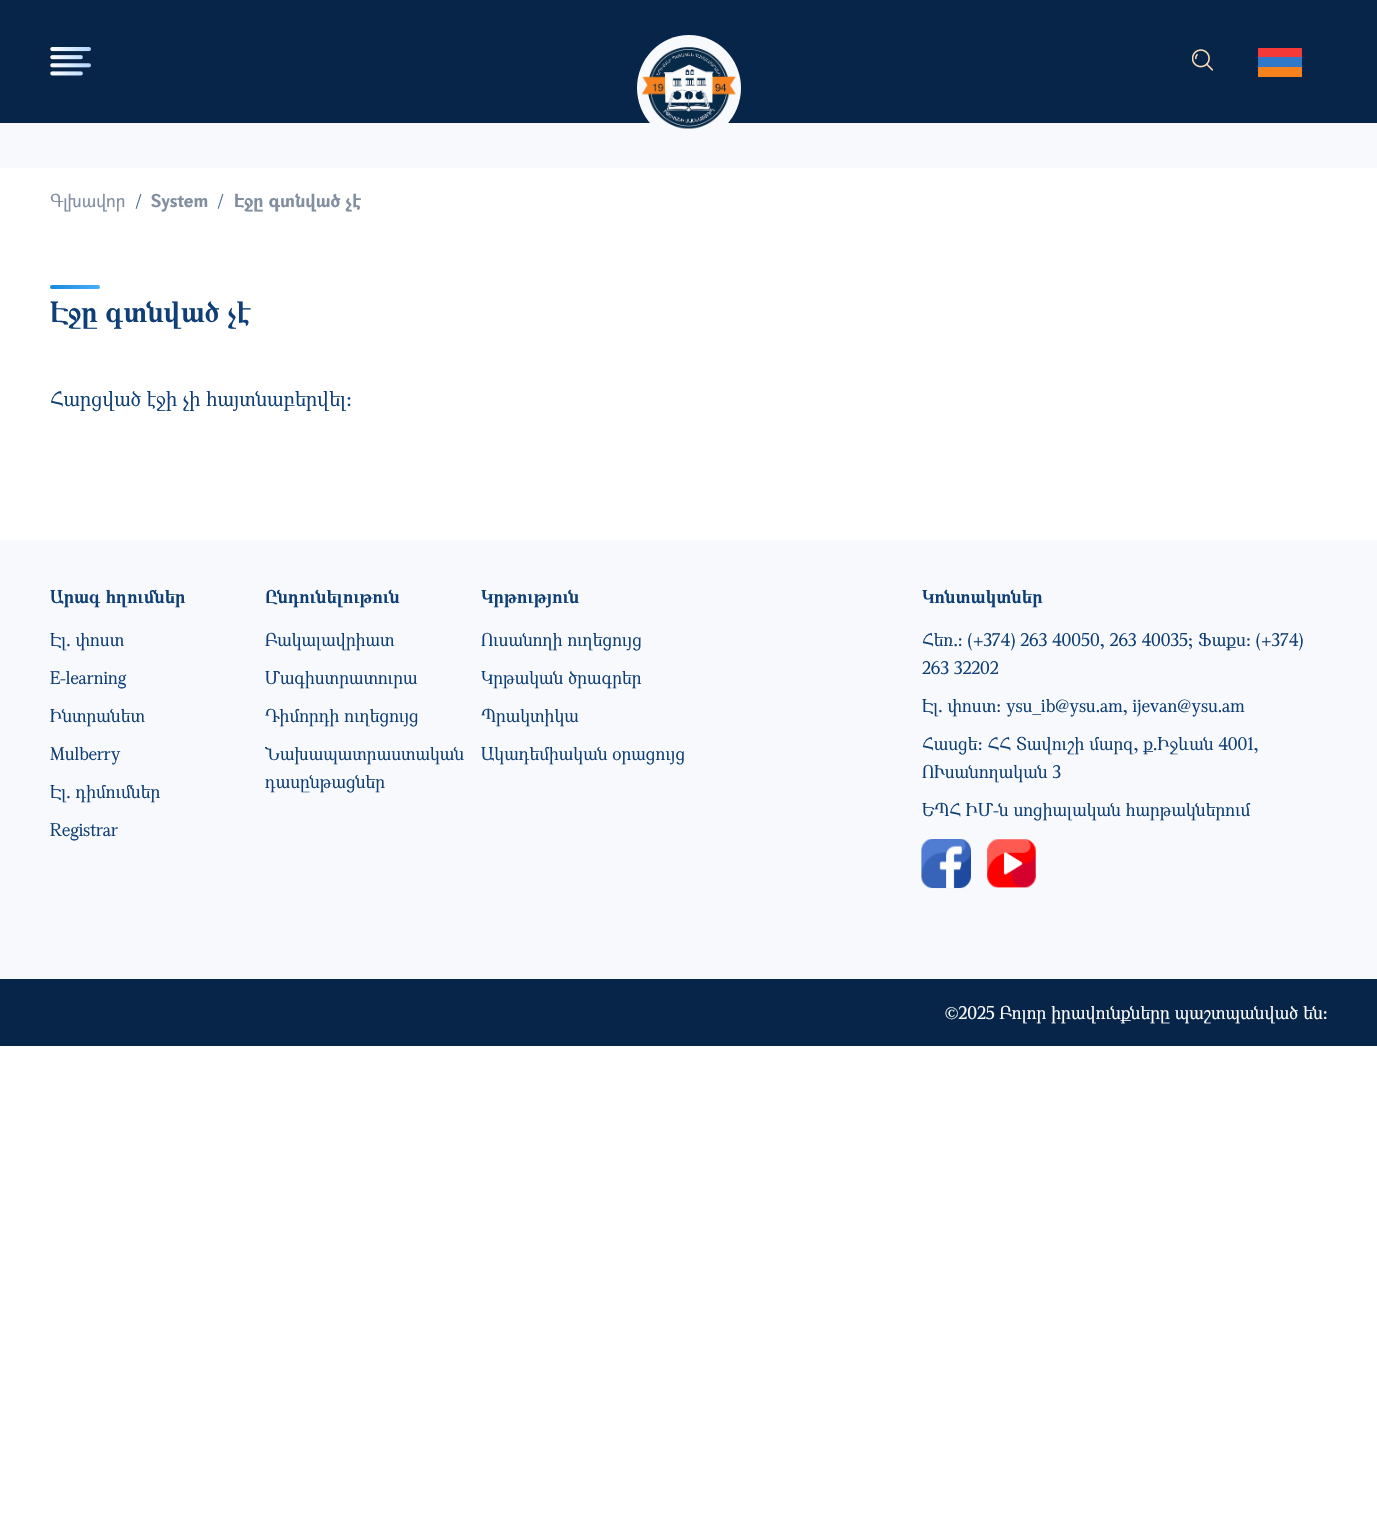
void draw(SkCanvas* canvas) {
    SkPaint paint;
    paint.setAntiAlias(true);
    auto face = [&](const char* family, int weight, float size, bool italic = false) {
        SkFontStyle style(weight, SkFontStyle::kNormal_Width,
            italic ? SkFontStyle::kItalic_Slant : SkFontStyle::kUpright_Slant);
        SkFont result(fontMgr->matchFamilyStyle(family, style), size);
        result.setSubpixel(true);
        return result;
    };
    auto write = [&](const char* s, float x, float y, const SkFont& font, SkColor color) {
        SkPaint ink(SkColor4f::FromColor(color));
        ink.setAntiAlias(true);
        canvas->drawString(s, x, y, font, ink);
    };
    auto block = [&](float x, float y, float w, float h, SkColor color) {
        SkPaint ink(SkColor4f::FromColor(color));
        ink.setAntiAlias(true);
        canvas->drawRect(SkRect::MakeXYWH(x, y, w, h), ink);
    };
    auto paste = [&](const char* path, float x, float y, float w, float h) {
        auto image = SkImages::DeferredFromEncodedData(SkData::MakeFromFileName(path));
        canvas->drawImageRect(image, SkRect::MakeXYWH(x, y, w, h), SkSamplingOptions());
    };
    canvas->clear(SK_ColorWHITE);
    block(0, 0, 1377, 123, SkColorSetRGB(6, 37, 72));
    paste("pic1.png", 50, 47, 41, 29);
    block(0, 123, 1377, 45, SkColorSetRGB(247, 249, 252));
    paint.setColor(SkColorSetRGB(247, 249, 252));
    canvas->drawOval(SkRect::MakeXYWH(637, 35, 104, 106), paint);
    paste("pic2.png", 641, 47, 95, 82);
    paste("pic3.png", 1192, 49, 21, 22);
    block(1258, 48, 44, 9, SkColorSetRGB(245, 56, 56));
    block(1258, 57, 44, 10, SkColorSetRGB(49, 120, 201));
    block(1258, 67, 44, 10, SkColorSetRGB(245, 130, 31));
    auto kFont1 = face("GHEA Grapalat", 400, 17.5f);
    write("Գլխավոր", 50, 207, kFont1, SkColorSetRGB(129, 143, 160));
    write("/", 136, 207, kFont1, SkColorSetRGB(75, 111, 152));
    auto kFont2 = face("GHEA Grapalat", 700, 17.5f);
    write("System", 151, 207, kFont2, SkColorSetRGB(129, 143, 160));
    write("/", 218, 207, kFont1, SkColorSetRGB(75, 111, 152));
    write("Էջը գտնված չէ", 234, 207, kFont2, SkColorSetRGB(129, 143, 160));
    {
        const SkColor colors[] = {SkColorSetRGB(70, 173, 247), SkColorSetRGB(24, 139, 222)};
        const float stops[] = {0.04f, 0.97f};
        const SkPoint ends[] = {{100, 287}, {50, 287}};
        paint.setShader(SkGradientShader::MakeLinear(ends, colors, stops, 2, SkTileMode::kClamp));
        paint.setAlpha(255);
    }
    canvas->drawRoundRect(SkRect::MakeXYWH(50, 285, 50, 4), 2, 2, paint);
    auto kFont3 = face("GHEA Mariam", 700, 27.5f);
    write("Էջը գտնված չէ", 50, 322, kFont3, SkColorSetRGB(15, 63, 118));
    auto kFont4 = face("GHEA Mariam", 400, 20);
    write("Հարցված էջի չի հայտնաբերվել:", 50, 406, kFont4, SkColorSetRGB(15, 63, 118));
    block(0, 540, 1377, 439, SkColorSetRGB(247, 249, 252));
    auto kFont5 = face("GHEA Mariam", 700, 17.5f);
    write("Արագ հղումներ", 50, 603, kFont5, SkColorSetRGB(15, 63, 118));
    auto kFont6 = face("GHEA Mariam", 400, 17.5f);
    write("Էլ. փոստ", 50, 646, kFont6, SkColorSetRGB(15, 63, 118));
    write("E-learning", 50, 684, kFont6, SkColorSetRGB(15, 63, 118));
    write("Ինտրանետ", 50, 722, kFont6, SkColorSetRGB(15, 63, 118));
    write("Mulberry", 50, 760, kFont6, SkColorSetRGB(15, 63, 118));
    write("Էլ. դիմումներ", 50, 798, kFont6, SkColorSetRGB(15, 63, 118));
    write("Registrar", 50, 836, kFont6, SkColorSetRGB(15, 63, 118));
    write("Ընդունելութուն", 265, 603, kFont5, SkColorSetRGB(15, 63, 118));
    write("Բակալավրիատ", 265, 646, kFont6, SkColorSetRGB(15, 63, 118));
    write("Մագիստրատուրա", 265, 684, kFont6, SkColorSetRGB(15, 63, 118));
    write("Դիմորդի ուղեցույց", 265, 722, kFont6, SkColorSetRGB(15, 63, 118));
    write("Նախապատրաստական", 265, 760, kFont6, SkColorSetRGB(15, 63, 118));
    write("դասընթացներ", 265, 788, kFont6, SkColorSetRGB(15, 63, 118));
    write("Կրթություն", 481, 603, kFont5, SkColorSetRGB(15, 63, 118));
    write("Ուսանողի ուղեցույց", 481, 646, kFont6, SkColorSetRGB(15, 63, 118));
    write("Կրթական ծրագրեր", 481, 684, kFont6, SkColorSetRGB(15, 63, 118));
    write("Պրակտիկա", 481, 722, kFont6, SkColorSetRGB(15, 63, 118));
    write("Ակադեմիական օրացույց", 481, 760, kFont6, SkColorSetRGB(15, 63, 118));
    write("Կոնտակտներ", 922, 603, kFont5, SkColorSetRGB(15, 63, 118));
    write("Հեռ.: (+374) 263 40050, 263 40035; Ֆաքս: (+374)", 922, 646, kFont6, SkColorSetRGB(15, 63, 118));
    write("263 32202", 922, 674, kFont6, SkColorSetRGB(15, 63, 118));
    write("Էլ. փոստ: ysu_ib@ysu.am, ijevan@ysu.am", 922, 712, kFont6, SkColorSetRGB(15, 63, 118));
    write("Հասցե: ՀՀ Տավուշի մարզ, ք.Իջևան 4001,", 922, 750, kFont6, SkColorSetRGB(15, 63, 118));
    write("ՈՒսանողական 3", 922, 778, kFont6, SkColorSetRGB(15, 63, 118));
    write("ԵՊՀ ԻՄ-ն սոցիալական հարթակներում", 922, 816, kFont6, SkColorSetRGB(15, 63, 118));
    paste("pic4.png", 921, 839, 50, 50);
    paste("pic5.png", 987, 839, 49, 49);
    block(0, 979, 1377, 67, SkColorSetRGB(6, 37, 72));
    write("©2025 Բոլոր իրավունքները պաշտպանված են:", 945, 1019, kFont6, SK_ColorWHITE);
}
